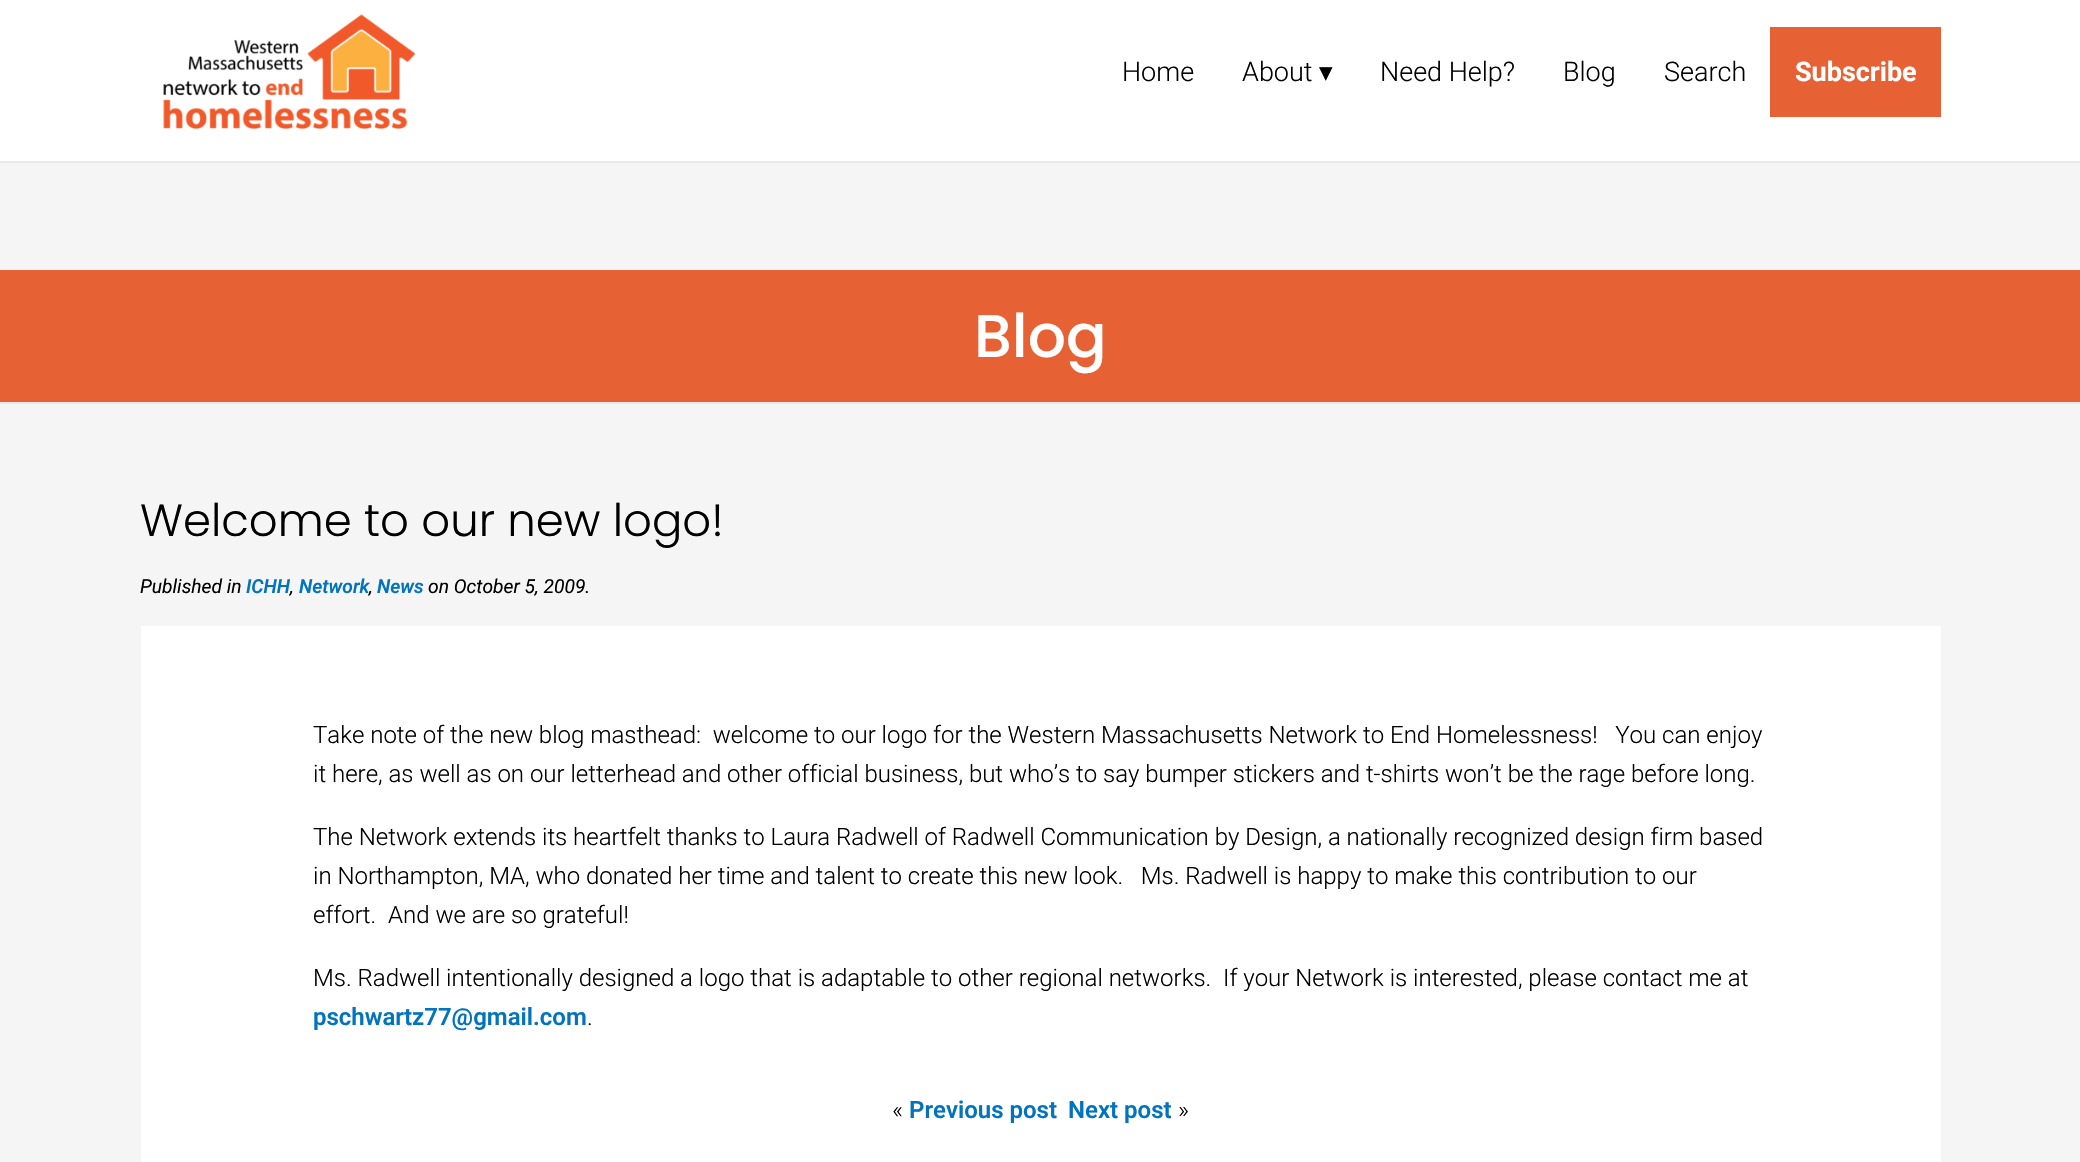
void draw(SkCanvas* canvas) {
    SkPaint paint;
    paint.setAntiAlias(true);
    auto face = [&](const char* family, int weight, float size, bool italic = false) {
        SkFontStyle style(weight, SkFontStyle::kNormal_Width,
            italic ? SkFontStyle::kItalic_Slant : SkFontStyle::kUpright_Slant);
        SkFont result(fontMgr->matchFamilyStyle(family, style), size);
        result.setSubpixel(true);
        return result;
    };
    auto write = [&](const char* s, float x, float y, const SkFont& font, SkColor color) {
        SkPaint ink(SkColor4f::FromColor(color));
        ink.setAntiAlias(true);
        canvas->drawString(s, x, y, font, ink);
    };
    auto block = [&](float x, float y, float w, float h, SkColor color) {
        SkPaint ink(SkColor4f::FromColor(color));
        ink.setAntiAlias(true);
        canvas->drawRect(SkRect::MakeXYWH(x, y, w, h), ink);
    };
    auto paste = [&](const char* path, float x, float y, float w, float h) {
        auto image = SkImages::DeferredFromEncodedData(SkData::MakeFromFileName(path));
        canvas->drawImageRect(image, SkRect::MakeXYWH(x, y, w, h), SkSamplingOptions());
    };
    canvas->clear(SK_ColorWHITE);
    paste("pic1.png", 163, 14, 253, 115);
    auto kFont1 = face("Roboto", 300, 27);
    write("Home", 1122, 81, kFont1, SK_ColorBLACK);
    write("About", 1242, 81, kFont1, SK_ColorBLACK);
    auto kFont2 = face("DejaVu Sans", 400, 27);
    write("▾", 1319, 81, kFont2, SK_ColorBLACK);
    write("Need Help?", 1380, 81, kFont1, SK_ColorBLACK);
    write("Blog", 1563, 81, kFont1, SK_ColorBLACK);
    write("Search", 1664, 81, kFont1, SK_ColorBLACK);
    block(1770, 27, 171, 90, SkColorSetRGB(230, 97, 51));
    auto kFont3 = face("Roboto", 700, 27);
    write("Subscribe", 1795, 81, kFont3, SK_ColorWHITE);
    block(0, 163, 2080, 107, SkColorSetRGB(245, 245, 245));
    block(0, 161, 2080, 2, SkColorSetRGB(234, 234, 234));
    block(0, 270, 2080, 132, SkColorSetRGB(230, 97, 51));
    auto kFont4 = face("Poppins", 500, 60);
    write("Blog", 974, 357, kFont4, SK_ColorWHITE);
    block(0, 404, 2080, 758, SkColorSetRGB(245, 245, 245));
    block(0, 402, 2080, 2, SkColorSetRGB(234, 234, 234));
    auto kFont5 = face("Poppins", 300, 45);
    write("Welcome to our new logo!", 140, 536, kFont5, SK_ColorBLACK);
    auto kFont6 = face("Roboto", 400, 19.25f, true);
    write("Published in", 140, 593, kFont6, SK_ColorBLACK);
    auto kFont7 = face("Roboto", 600, 19.25f, true);
    write("ICHH", 246, 593, kFont7, SkColorSetRGB(2, 116, 190));
    write("Network", 299, 593, kFont7, SkColorSetRGB(2, 116, 190));
    write("News", 377, 593, kFont7, SkColorSetRGB(2, 116, 190));
    write("on October 5, 2009.", 428, 593, kFont6, SK_ColorBLACK);
    write(",", 290, 593, kFont6, SK_ColorBLACK);
    write(",", 369, 593, kFont6, SK_ColorBLACK);
    block(141, 626, 1800, 536, SK_ColorWHITE);
    auto kFont8 = face("Roboto", 300, 24);
    write("Take note of the new blog masthead:  welcome to our logo for the Western Massachusetts Network to End Homelessness!   You can enjoy", 313, 743, kFont8, SK_ColorBLACK);
    write("it here, as well as on our letterhead and other official business, but who’s to say bumper stickers and t-shirts won’t be the rage before long.", 313, 782, kFont8, SK_ColorBLACK);
    write("The Network extends its heartfelt thanks to Laura Radwell of Radwell Communication by Design, a nationally recognized design firm based", 313, 845, kFont8, SK_ColorBLACK);
    write("in Northampton, MA, who donated her time and talent to create this new look.   Ms. Radwell is happy to make this contribution to our", 313, 884, kFont8, SK_ColorBLACK);
    write("effort.  And we are so grateful!", 313, 923, kFont8, SK_ColorBLACK);
    write("Ms. Radwell intentionally designed a logo that is adaptable to other regional networks.  If your Network is interested, please contact me at", 313, 986, kFont8, SK_ColorBLACK);
    auto kFont9 = face("Roboto", 600, 24);
    write("pschwartz77@gmail.com", 313, 1025, kFont9, SkColorSetRGB(2, 116, 190));
    write(".", 587, 1025, kFont8, SK_ColorBLACK);
    write("«", 892, 1118, kFont8, SK_ColorBLACK);
    write("Previous post", 909, 1118, kFont9, SkColorSetRGB(2, 116, 190));
    write("Next post", 1068, 1118, kFont9, SkColorSetRGB(2, 116, 190));
    write("»", 1178, 1118, kFont8, SK_ColorBLACK);
}
